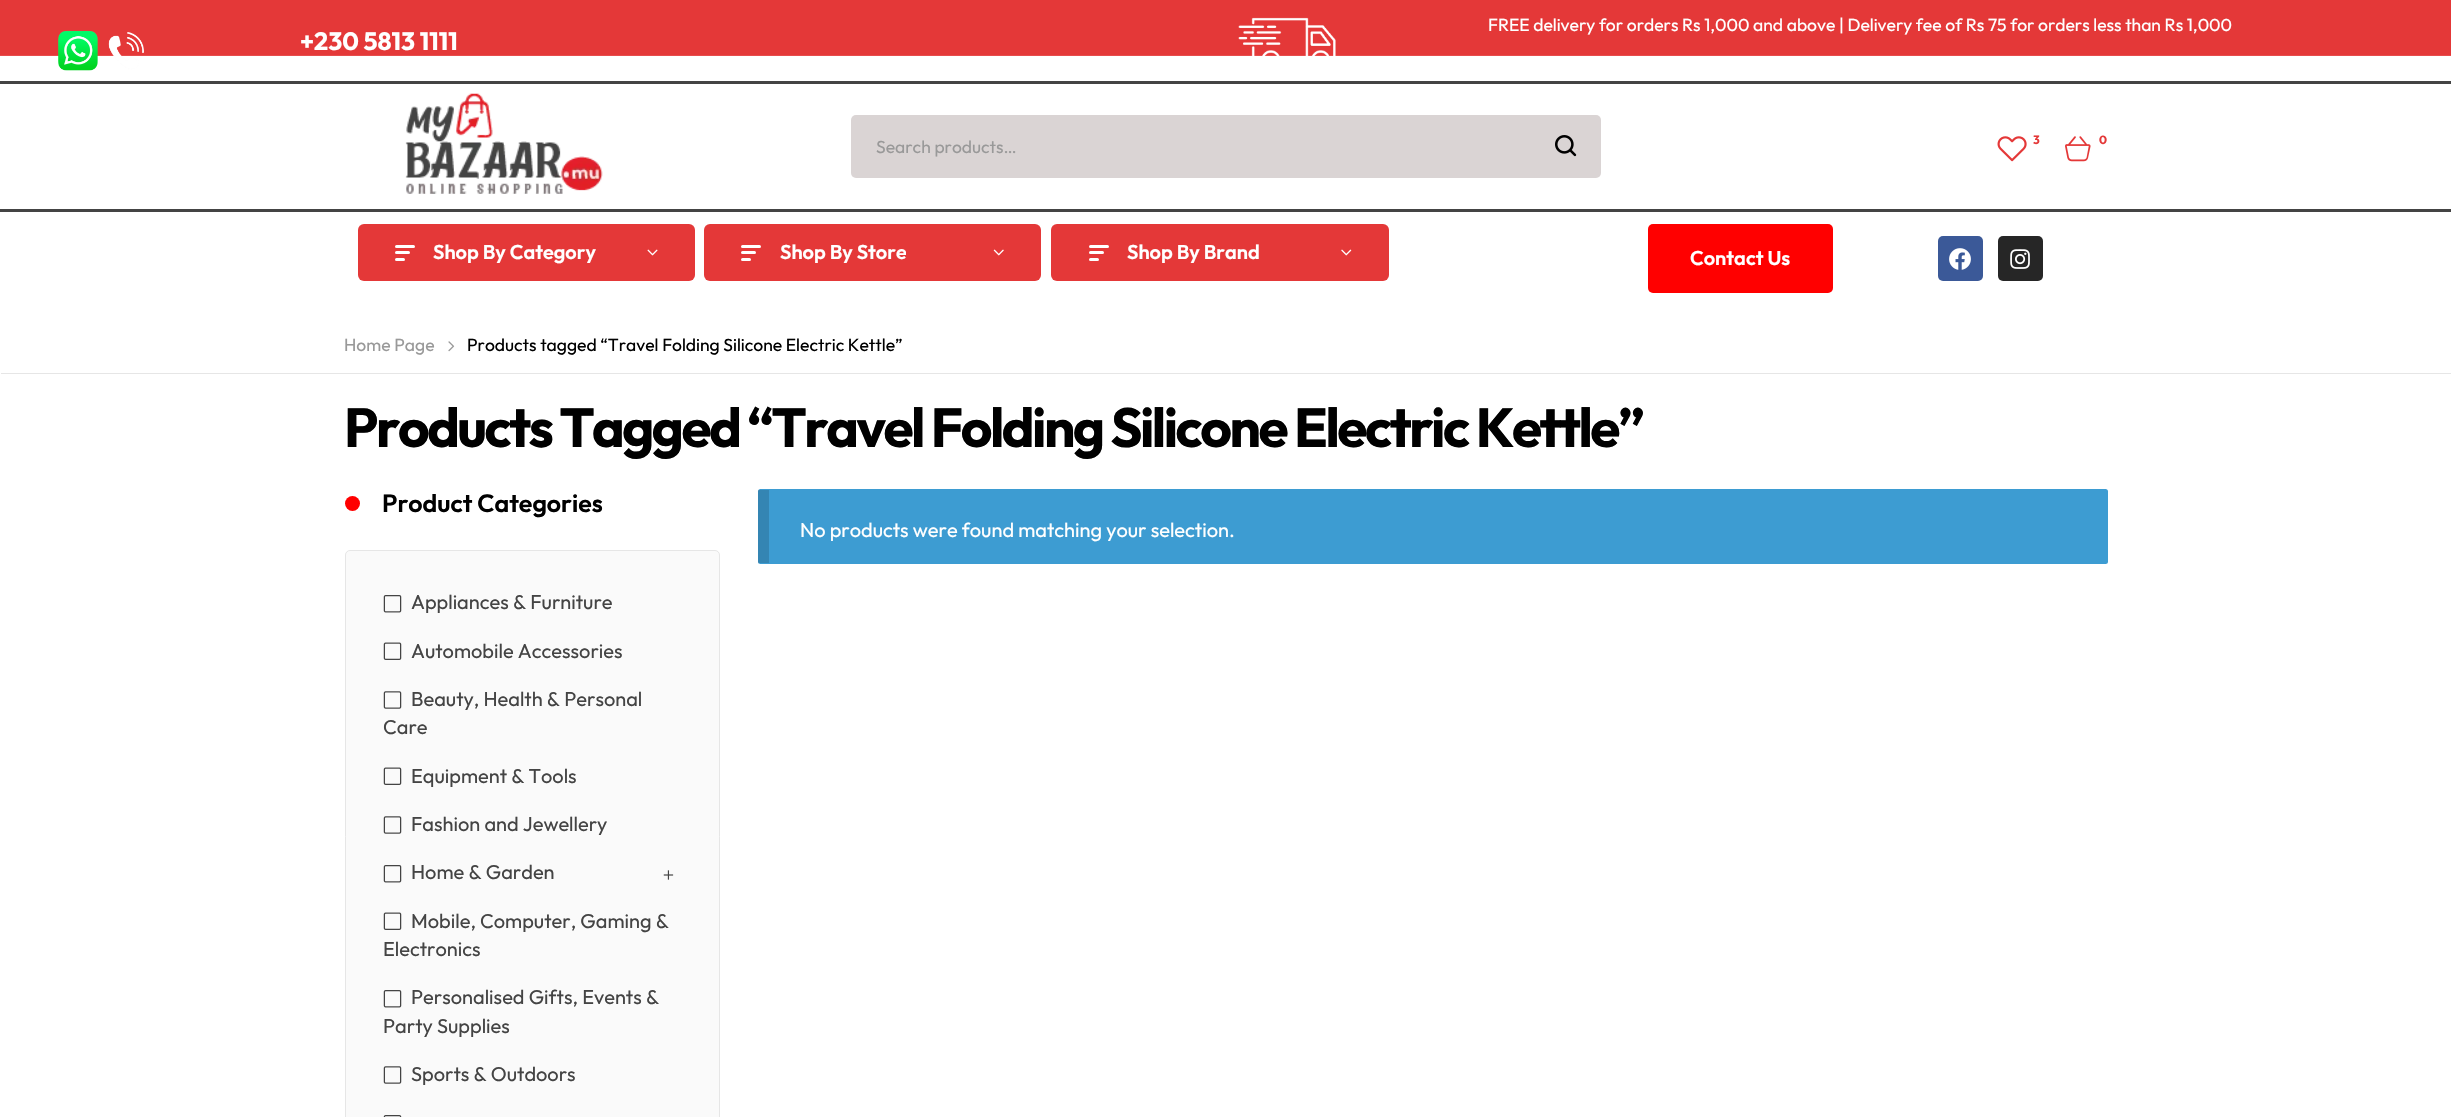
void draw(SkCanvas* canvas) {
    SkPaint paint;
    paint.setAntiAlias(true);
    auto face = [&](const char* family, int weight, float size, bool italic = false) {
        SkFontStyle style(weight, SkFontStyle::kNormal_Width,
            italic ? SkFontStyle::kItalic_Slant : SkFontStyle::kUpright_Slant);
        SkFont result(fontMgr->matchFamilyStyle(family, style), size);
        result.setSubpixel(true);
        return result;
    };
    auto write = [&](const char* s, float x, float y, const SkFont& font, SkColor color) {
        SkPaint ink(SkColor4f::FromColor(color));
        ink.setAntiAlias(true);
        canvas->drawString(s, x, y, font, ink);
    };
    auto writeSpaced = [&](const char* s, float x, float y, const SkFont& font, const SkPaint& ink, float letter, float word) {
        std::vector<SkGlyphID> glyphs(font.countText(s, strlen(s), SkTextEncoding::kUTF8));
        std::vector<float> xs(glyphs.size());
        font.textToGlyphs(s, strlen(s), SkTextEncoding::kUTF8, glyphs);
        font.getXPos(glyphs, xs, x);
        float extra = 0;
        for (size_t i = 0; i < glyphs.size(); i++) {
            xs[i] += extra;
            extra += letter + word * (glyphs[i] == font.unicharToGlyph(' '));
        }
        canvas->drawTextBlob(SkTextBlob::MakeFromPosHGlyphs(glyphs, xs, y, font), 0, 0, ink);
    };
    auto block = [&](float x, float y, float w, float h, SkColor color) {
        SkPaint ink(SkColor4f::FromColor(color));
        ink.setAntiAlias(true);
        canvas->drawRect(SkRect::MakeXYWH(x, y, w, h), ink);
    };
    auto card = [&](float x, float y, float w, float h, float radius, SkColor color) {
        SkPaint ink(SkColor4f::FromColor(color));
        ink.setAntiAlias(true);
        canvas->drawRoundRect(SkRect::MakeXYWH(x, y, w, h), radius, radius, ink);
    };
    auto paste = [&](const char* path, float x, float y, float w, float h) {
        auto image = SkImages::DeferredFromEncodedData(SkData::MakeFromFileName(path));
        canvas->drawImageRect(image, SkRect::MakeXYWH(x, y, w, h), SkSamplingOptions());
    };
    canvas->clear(SK_ColorWHITE);
    block(0, 0, 2451, 55, SkColorSetRGB(228, 56, 56));
    block(0, 55, 2451, 1, SkColorSetRGB(231, 76, 76));
    paste("pic1.png", 1238, 17, 98, 39);
    auto kFont1 = face("Outfit", 400, 17.5f);
    write("FREE delivery for orders Rs 1,000 and above | Delivery fee of Rs 75 for orders less than Rs 1,000", 1488, 31, kFont1, SK_ColorWHITE);
    paste("pic2.png", 58, 30, 86, 41);
    auto kFont2 = face("Outfit", 700, 25);
    write("+230 5813 1111", 300, 50, kFont2, SK_ColorWHITE);
    block(0, 81, 2451, 3, SkColorSetRGB(68, 68, 68));
    block(0, 209, 2451, 3, SkColorSetRGB(68, 68, 68));
    paste("pic3.png", 405, 93, 198, 101);
    card(851, 115, 750, 63, 5, SkColorSetRGB(218, 212, 212));
    write("Search products…", 876, 153, kFont1, SkColorSetRGB(153, 153, 153));
    paste("pic4.png", 1555, 135, 22, 22);
    paste("pic5.png", 1997, 136, 30, 26);
    auto kFont3 = face("Outfit", 700, 12);
    write("3", 2033, 144, kFont3, SkColorSetRGB(228, 56, 56));
    paste("pic6.png", 2065, 136, 26, 26);
    write("0", 2099, 144, kFont3, SkColorSetRGB(228, 56, 56));
    card(358, 224, 337, 57, 6, SkColorSetRGB(228, 56, 56));
    card(395, 245, 20, 3, 1.5f, SK_ColorWHITE);
    card(395, 251, 15, 3, 1.5f, SK_ColorWHITE);
    card(395, 258, 10, 3, 1.5f, SK_ColorWHITE);
    auto kFont4 = face("Outfit", 600, 20);
    write("Shop By Category", 433, 259, kFont4, SK_ColorWHITE);
    paste("pic7.png", 647, 249, 11, 7);
    card(704, 224, 337, 57, 6, SkColorSetRGB(228, 56, 56));
    card(741, 245, 20, 3, 1.5f, SK_ColorWHITE);
    card(741, 251, 15, 3, 1.5f, SK_ColorWHITE);
    card(741, 258, 10, 3, 1.5f, SK_ColorWHITE);
    canvas->save();
    canvas->clipRect(SkRect::MakeXYWH(780, 234, 126, 37));
    write("Shop By Store", 780, 259, kFont4, SK_ColorWHITE);
    canvas->restore();
    paste("pic8.png", 993, 249, 11, 7);
    card(1051, 224, 338, 57, 6, SkColorSetRGB(228, 56, 56));
    card(1089, 245, 20, 3, 1.5f, SK_ColorWHITE);
    card(1089, 251, 15, 3, 1.5f, SK_ColorWHITE);
    card(1089, 258, 10, 3, 1.5f, SK_ColorWHITE);
    write("Shop By Brand", 1127, 259, kFont4, SK_ColorWHITE);
    paste("pic9.png", 1341, 249, 11, 7);
    card(1648, 224, 185, 69, 5, SkColorSetRGB(255, 0, 0));
    write("Contact Us", 1690, 265, kFont4, SK_ColorWHITE);
    card(1938, 236, 45, 45, 5, SkColorSetRGB(59, 89, 152));
    paste("pic10.png", 1949, 248, 22, 22);
    card(1998, 236, 45, 45, 5, SkColorSetRGB(38, 38, 38));
    paste("pic11.png", 2010, 249, 20, 20);
    write("Home Page", 344, 351, kFont1, SkColorSetRGB(153, 153, 153));
    paste("pic12.png", 448, 341, 7, 11);
    write("Products tagged “Travel Folding Silicone Electric Kettle”", 467, 351, kFont1, SK_ColorBLACK);
    block(1, 373, 2450, 1, SkColorSetRGB(230, 230, 230));
    auto kFont5 = face("Outfit", 700, 55);
    paint.setColor(SK_ColorBLACK);
    writeSpaced("Products Tagged “Travel Folding Silicone Electric Kettle”", 344, 447, kFont5, paint, -2.5f, 0);
    paint.setColor(SkColorSetRGB(255, 0, 0));
    canvas->drawCircle(352.5f, 503.5f, 7.5f, paint);
    auto kFont6 = face("Outfit", 600, 25);
    write("Product Categories", 382, 512, kFont6, SK_ColorBLACK);
    paint.setColor(SkColorSetRGB(250, 250, 250));
    canvas->drawRoundRect(SkRect::MakeXYWH(345.5f, 550.5f, 374, 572), 4.5f, 4.5f, paint);
    paint.setStyle(SkPaint::kStroke_Style);
    paint.setStrokeWidth(1);
    paint.setColor(SkColorSetRGB(230, 230, 230));
    canvas->drawRoundRect(SkRect::MakeXYWH(345.5f, 550.5f, 374, 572), 4.5f, 4.5f, paint);
    paste("pic13.png", 383, 595, 19, 18);
    auto kFont7 = face("Outfit", 400, 20);
    write("Appliances & Furniture", 411, 609, kFont7, SkColorSetRGB(68, 68, 68));
    paste("pic14.png", 383, 642, 19, 18);
    write("Automobile Accessories", 411, 658, kFont7, SkColorSetRGB(68, 68, 68));
    paste("pic15.png", 383, 691, 19, 18);
    write("Beauty, Health & Personal", 411, 706, kFont7, SkColorSetRGB(68, 68, 68));
    write("Care", 383, 734, kFont7, SkColorSetRGB(68, 68, 68));
    paste("pic14.png", 383, 767, 19, 18);
    write("Equipment & Tools", 411, 783, kFont7, SkColorSetRGB(68, 68, 68));
    paste("pic15.png", 383, 816, 19, 18);
    write("Fashion and Jewellery", 411, 831, kFont7, SkColorSetRGB(68, 68, 68));
    paste("pic13.png", 383, 865, 19, 18);
    write("Home & Garden", 411, 879, kFont7, SkColorSetRGB(68, 68, 68));
    paste("pic16.png", 663, 870, 11, 10);
    paste("pic14.png", 383, 912, 19, 18);
    write("Mobile, Computer, Gaming &", 411, 928, kFont7, SkColorSetRGB(68, 68, 68));
    write("Electronics", 383, 956, kFont7, SkColorSetRGB(68, 68, 68));
    paste("pic13.png", 383, 990, 19, 18);
    write("Personalised Gifts, Events &", 411, 1004, kFont7, SkColorSetRGB(68, 68, 68));
    write("Party Supplies", 383, 1033, kFont7, SkColorSetRGB(68, 68, 68));
    paste("pic15.png", 383, 1066, 19, 18);
    write("Sports & Outdoors", 411, 1081, kFont7, SkColorSetRGB(68, 68, 68));
    paste("pic17.png", 383, 1115, 19, 2);
    card(758, 489, 1350, 75, 2.5f, SkColorSetRGB(61, 156, 210));
    block(758, 490, 11, 73, SkColorSetARGB(38, 0, 0, 0));
    write("No products were found matching your selection.", 800, 537, kFont7, SK_ColorWHITE);
}
